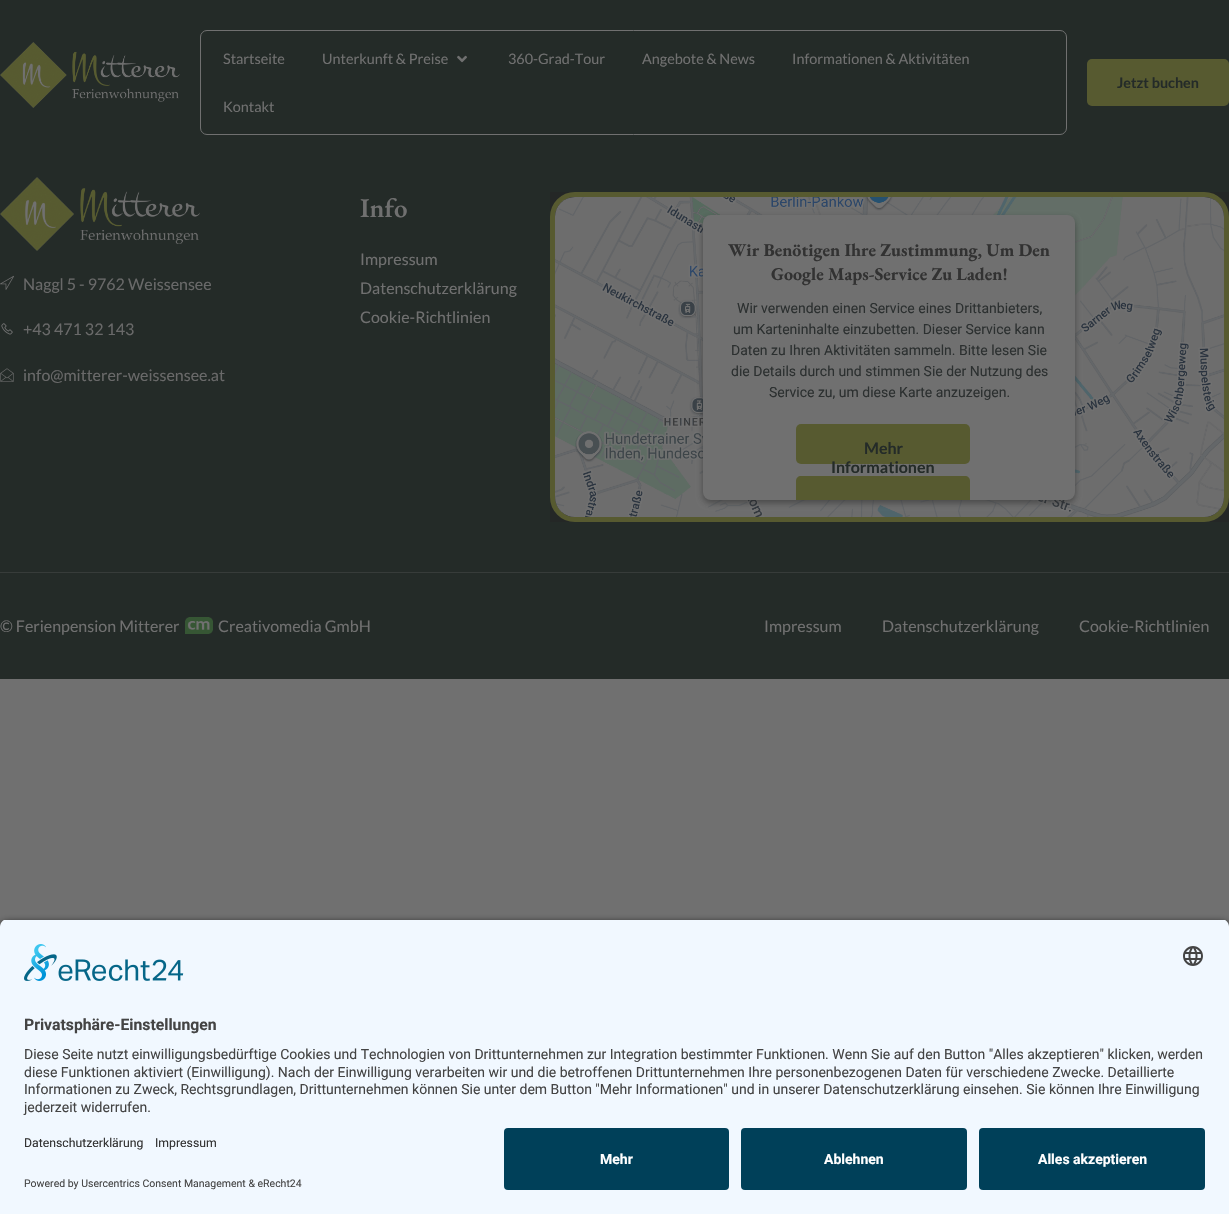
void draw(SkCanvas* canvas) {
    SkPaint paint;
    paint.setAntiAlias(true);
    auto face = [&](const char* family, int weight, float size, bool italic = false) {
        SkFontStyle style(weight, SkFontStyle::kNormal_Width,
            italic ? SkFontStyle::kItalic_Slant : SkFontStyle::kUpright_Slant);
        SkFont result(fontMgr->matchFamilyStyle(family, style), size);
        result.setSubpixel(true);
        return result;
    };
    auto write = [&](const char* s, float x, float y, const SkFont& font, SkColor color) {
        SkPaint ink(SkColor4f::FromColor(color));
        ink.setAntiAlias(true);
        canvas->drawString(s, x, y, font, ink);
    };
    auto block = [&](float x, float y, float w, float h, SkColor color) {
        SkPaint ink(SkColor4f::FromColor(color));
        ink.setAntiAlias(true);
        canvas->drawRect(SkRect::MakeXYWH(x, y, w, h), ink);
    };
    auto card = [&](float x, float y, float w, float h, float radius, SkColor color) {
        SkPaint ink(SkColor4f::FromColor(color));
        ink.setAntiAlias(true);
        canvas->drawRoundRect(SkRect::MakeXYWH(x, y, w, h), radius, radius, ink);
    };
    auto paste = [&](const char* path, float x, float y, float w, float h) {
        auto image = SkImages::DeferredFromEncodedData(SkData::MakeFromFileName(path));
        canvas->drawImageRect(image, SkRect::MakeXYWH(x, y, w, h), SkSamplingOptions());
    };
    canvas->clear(SkColorSetRGB(112, 112, 112));
    block(0, 0, 1229, 679, SkColorSetRGB(36, 43, 40));
    paste("pic1.png", 0, 42, 180, 66);
    paint.setStyle(SkPaint::kStroke_Style);
    paint.setStrokeWidth(1);
    paint.setColor(SkColorSetRGB(112, 112, 112));
    canvas->drawRoundRect(SkRect::MakeXYWH(200.5f, 30.5f, 866, 104), 6.5f, 6.5f, paint);
    auto kFont1 = face("Lato", 400, 14.4f);
    write("Startseite", 223, 64, kFont1, SkColorSetRGB(112, 112, 112));
    write("Unterkunft & Preise", 322, 64, kFont1, SkColorSetRGB(112, 112, 112));
    paste("pic2.png", 457, 55, 10, 8);
    write("360-Grad-Tour", 508, 64, kFont1, SkColorSetRGB(112, 112, 112));
    write("Angebote & News", 642, 64, kFont1, SkColorSetRGB(112, 112, 112));
    write("Informationen & Aktivitäten", 792, 64, kFont1, SkColorSetRGB(112, 112, 112));
    write("Kontakt", 223, 112, kFont1, SkColorSetRGB(112, 112, 112));
    card(1087, 59, 142, 47, 5, SkColorSetRGB(87, 90, 48));
    auto kFont2 = face("Lato", 700, 14.4f);
    write("Jetzt buchen", 1117, 88, kFont2, SkColorSetRGB(36, 43, 40));
    paste("pic3.png", 0, 177, 200, 74);
    paste("pic4.png", 0, 275, 14, 15);
    auto kFont3 = face("Lato", 400, 16);
    write("Naggl 5 - 9762 Weissensee", 23, 290, kFont3, SkColorSetRGB(105, 105, 105));
    paste("pic5.png", 1, 323, 12, 12);
    write("+43 471 32 143", 23, 335, kFont3, SkColorSetRGB(105, 105, 105));
    paste("pic6.png", 0, 368, 14, 14);
    write("info@mitterer-weissensee.at", 23, 381, kFont3, SkColorSetRGB(105, 105, 105));
    auto kFont4 = face("EB Garamond", 600, 27);
    write("Info", 360, 217, kFont4, SkColorSetRGB(112, 112, 112));
    write("Impressum", 360, 265, kFont3, SkColorSetRGB(112, 112, 112));
    write("Datenschutzerklärung", 360, 294, kFont3, SkColorSetRGB(112, 112, 112));
    write("Cookie-Richtlinien", 360, 323, kFont3, SkColorSetRGB(112, 112, 112));
    block(550, 192, 679, 330, SkColorSetRGB(36, 39, 38));
    paint.setStrokeWidth(5);
    paint.setColor(SkColorSetRGB(87, 90, 48));
    canvas->drawRoundRect(SkRect::MakeXYWH(552.5f, 194.5f, 674, 325), 22.5f, 22.5f, paint);
    paste("pic7.png", 555, 197, 669, 320);
    paint.setStyle(SkPaint::kFill_Style);
    paint.setColor(SkColorSetARGB(128, 36, 36, 36));
    paint.setMaskFilter(SkMaskFilter::MakeBlur(kNormal_SkBlurStyle, 3));
    canvas->drawRoundRect(SkRect::MakeXYWH(703, 218, 372, 285), 8, 8, paint);
    paint.setMaskFilter(nullptr);
    card(703, 215, 372, 285, 8, SkColorSetRGB(112, 112, 112));
    auto kFont5 = face("EB Garamond", 700, 18);
    write("Wir Benötigen Ihre Zustimmung, Um Den", 728, 256, kFont5, SkColorSetRGB(50, 50, 50));
    write("Google Maps-Service Zu Laden!", 771, 280, kFont5, SkColorSetRGB(50, 50, 50));
    auto kFont6 = face("Roboto", 400, 14);
    write("Wir verwenden einen Service eines Drittanbieters,", 737, 313, kFont6, SkColorSetRGB(44, 48, 48));
    write("um Karteninhalte einzubetten. Dieser Service kann", 733, 334, kFont6, SkColorSetRGB(44, 48, 48));
    write("Daten zu Ihren Aktivitäten sammeln. Bitte lesen Sie", 731, 355, kFont6, SkColorSetRGB(44, 48, 48));
    write("die Details durch und stimmen Sie der Nutzung des", 731, 376, kFont6, SkColorSetRGB(44, 48, 48));
    write("Service zu, um diese Karte anzuzeigen.", 769, 397, kFont6, SkColorSetRGB(44, 48, 48));
    card(796, 424, 174, 40, 5, SkColorSetRGB(87, 90, 48));
    auto kFont7 = face("Lato", 700, 16);
    write("Mehr", 864, 454, kFont7, SkColorSetRGB(36, 43, 40));
    write("Informationen", 831, 473, kFont7, SkColorSetRGB(36, 43, 40));
    paint.setColor(SkColorSetRGB(87, 90, 48));
    canvas->drawPath(SkPathBuilder().moveTo(801, 476).lineTo(965, 476).cubicTo(968, 476, 970, 478, 970, 481).lineTo(970, 500).lineTo(796, 500).lineTo(796, 481).cubicTo(796, 478, 798, 476, 801, 476).close().detach(), paint);
    block(0, 572, 1229, 1, SkColorSetRGB(55, 60, 58));
    write("© Ferienpension Mitterer", 0, 632, kFont3, SkColorSetRGB(112, 112, 112));
    paste("pic8.png", 185, 617, 28, 17);
    write("Creativomedia GmbH", 218, 632, kFont3, SkColorSetRGB(112, 112, 112));
    write("Impressum", 764, 632, kFont3, SkColorSetRGB(112, 112, 112));
    write("Datenschutzerklärung", 882, 632, kFont3, SkColorSetRGB(112, 112, 112));
    write("Cookie-Richtlinien", 1079, 632, kFont3, SkColorSetRGB(112, 112, 112));
    paint.setColor(SkColorSetARGB(204, 0, 0, 0));
    paint.setMaskFilter(SkMaskFilter::MakeBlur(kNormal_SkBlurStyle, 3.5f));
    canvas->drawRoundRect(SkRect::MakeXYWH(0, 922, 1229, 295), 8, 8, paint);
    paint.setMaskFilter(nullptr);
    canvas->save();
    canvas->clipPath(SkPathBuilder().moveTo(8, 919).lineTo(1221, 919).cubicTo(1225.5f, 919, 1229, 922.5f, 1229, 927).lineTo(1229, 1120).lineTo(0, 1120).lineTo(0, 927).cubicTo(0, 922.5f, 3.5f, 919, 8, 919).close().detach(), true);
    block(0, 920, 1229, 200, SkColorSetRGB(241, 248, 255));
    canvas->restore();
    paste("pic9.png", 24, 944, 160, 37);
    paste("pic10.png", 1183, 946, 20, 20);
    auto kFont8 = face("Roboto", 700, 15.75f);
    write("Privatsphäre-Einstellungen", 24, 1030, kFont8, SkColorSetRGB(68, 68, 68));
    write("Diese Seite nutzt einwilligungsbedürftige Cookies und Technologien von Drittunternehmen zur Integration bestimmter Funktionen. Wenn Sie auf den Button \"Alles akzeptieren\" klicken, werden", 24, 1059, kFont6, SkColorSetRGB(68, 68, 68));
    write("diese Funktionen aktiviert (Einwilligung). Nach der Einwilligung verarbeiten wir und die betroffenen Drittunternehmen Ihre personenbezogenen Daten für verschiedene Zwecke. Detaillierte", 24, 1077, kFont6, SkColorSetRGB(68, 68, 68));
    write("Informationen zu Zweck, Rechtsgrundlagen, Drittunternehmen können Sie unter dem Button \"Mehr Informationen\" und in unserer Datenschutzerklärung einsehen. Sie können Ihre Einwilligung", 24, 1094, kFont6, SkColorSetRGB(68, 68, 68));
    write("jederzeit widerrufen.", 24, 1112, kFont6, SkColorSetRGB(68, 68, 68));
    block(0, 1120, 1229, 94, SkColorSetRGB(241, 248, 255));
    auto kFont9 = face("Roboto", 400, 12.25f);
    write("Datenschutzerklärung", 24, 1147, kFont9, SkColorSetRGB(50, 50, 50));
    write("Impressum", 155, 1147, kFont9, SkColorSetRGB(50, 50, 50));
    auto kFont10 = face("Roboto", 400, 10.5f);
    write("Powered by Usercentrics Consent Management & eRecht24", 24, 1187, kFont10, SkColorSetRGB(68, 68, 68));
    card(504, 1128, 225, 62, 4, SkColorSetRGB(0, 64, 89));
    auto kFont11 = face("Roboto", 700, 14);
    write("Mehr", 600, 1164, kFont11, SK_ColorWHITE);
    card(741, 1128, 226, 62, 4, SkColorSetRGB(0, 64, 89));
    write("Ablehnen", 824, 1164, kFont11, SK_ColorWHITE);
    card(979, 1128, 226, 62, 4, SkColorSetRGB(0, 64, 89));
    write("Alles akzeptieren", 1038, 1164, kFont11, SK_ColorWHITE);
}
